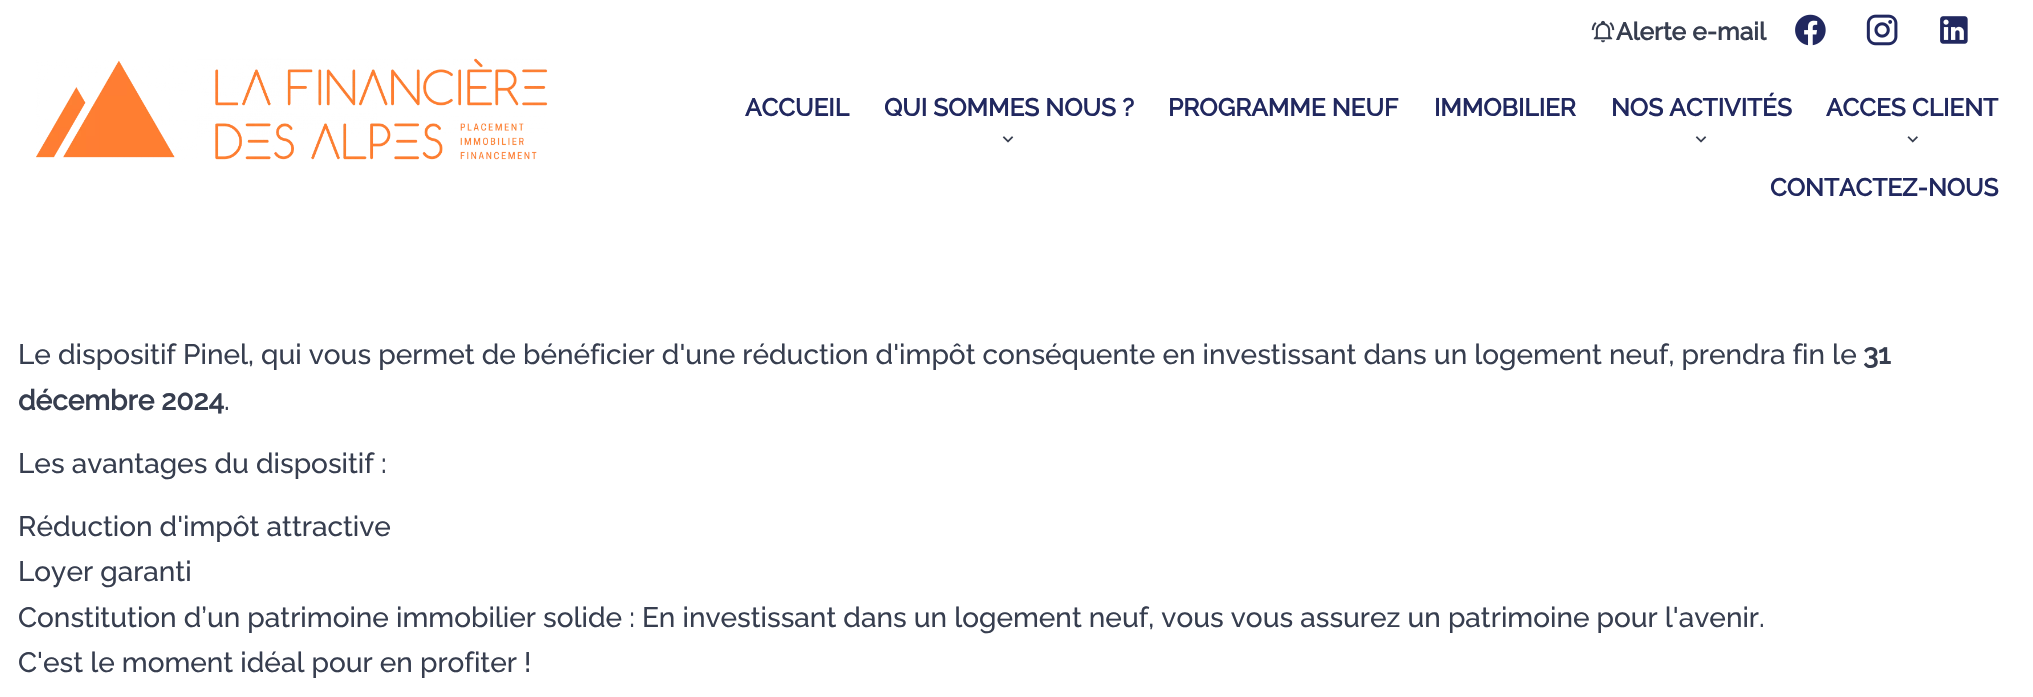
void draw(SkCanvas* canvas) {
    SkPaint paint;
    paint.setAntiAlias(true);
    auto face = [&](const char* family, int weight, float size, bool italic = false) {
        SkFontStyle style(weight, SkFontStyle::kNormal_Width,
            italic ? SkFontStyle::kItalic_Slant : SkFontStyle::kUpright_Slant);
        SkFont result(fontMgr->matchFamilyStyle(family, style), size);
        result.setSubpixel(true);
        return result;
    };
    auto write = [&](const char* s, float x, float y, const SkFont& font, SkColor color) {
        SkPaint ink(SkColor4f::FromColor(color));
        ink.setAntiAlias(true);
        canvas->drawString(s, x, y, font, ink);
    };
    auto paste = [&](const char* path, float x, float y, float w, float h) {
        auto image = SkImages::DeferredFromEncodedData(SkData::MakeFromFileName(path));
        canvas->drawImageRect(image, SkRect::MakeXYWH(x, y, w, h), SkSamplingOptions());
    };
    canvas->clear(SK_ColorWHITE);
    paste("pic1.png", 36, 58, 512, 102);
    paste("pic2.png", 1591, 20, 24, 23);
    auto kFont1 = face("Raleway", 700, 24.5f);
    write("Alerte e-mail", 1616, 40, kFont1, SkColorSetRGB(55, 62, 79));
    paste("pic3.png", 1795, 14, 31, 32);
    paste("pic4.png", 1866, 14, 32, 32);
    paste("pic5.png", 1940, 16, 28, 28);
    write("ACCUEIL", 745, 116, kFont1, SkColorSetRGB(33, 40, 95));
    write("QUI SOMMES NOUS ?", 884, 116, kFont1, SkColorSetRGB(33, 40, 95));
    paste("pic6.png", 1002, 136, 12, 7);
    write("PROGRAMME NEUF", 1168, 116, kFont1, SkColorSetRGB(33, 40, 95));
    write("IMMOBILIER", 1434, 116, kFont1, SkColorSetRGB(33, 40, 95));
    write("NOS ACTIVITÉS", 1611, 116, kFont1, SkColorSetRGB(33, 40, 95));
    paste("pic6.png", 1695, 136, 12, 7);
    write("ACCES CLIENT", 1826, 116, kFont1, SkColorSetRGB(33, 40, 95));
    paste("pic7.png", 1907, 136, 11, 7);
    write("CONTACTEZ-NOUS", 1770, 196, kFont1, SkColorSetRGB(33, 40, 95));
    auto kFont2 = face("Raleway", 100, 28);
    write("Le dispositif Pinel, qui vous permet de bénéficier d'une réduction d'impôt conséquente en investissant dans un logement neuf, prendra fin le", 18, 364, kFont2, SkColorSetRGB(55, 62, 79));
    auto kFont3 = face("Raleway", 700, 28);
    write("31", 1863, 364, kFont3, SkColorSetRGB(55, 62, 79));
    write("décembre 2024", 18, 410, kFont3, SkColorSetRGB(55, 62, 79));
    write(".", 224, 410, kFont2, SkColorSetRGB(55, 62, 79));
    write("Les avantages du dispositif :", 18, 473, kFont2, SkColorSetRGB(55, 62, 79));
    write("Réduction d'impôt attractive", 18, 536, kFont2, SkColorSetRGB(55, 62, 79));
    write("Loyer garanti", 18, 581, kFont2, SkColorSetRGB(55, 62, 79));
    write("Constitution d’un patrimoine immobilier solide : En investissant dans un logement neuf, vous vous assurez un patrimoine pour l'avenir.", 18, 627, kFont2, SkColorSetRGB(55, 62, 79));
    write("C'est le moment idéal pour en profiter !", 18, 672, kFont2, SkColorSetRGB(55, 62, 79));
}
